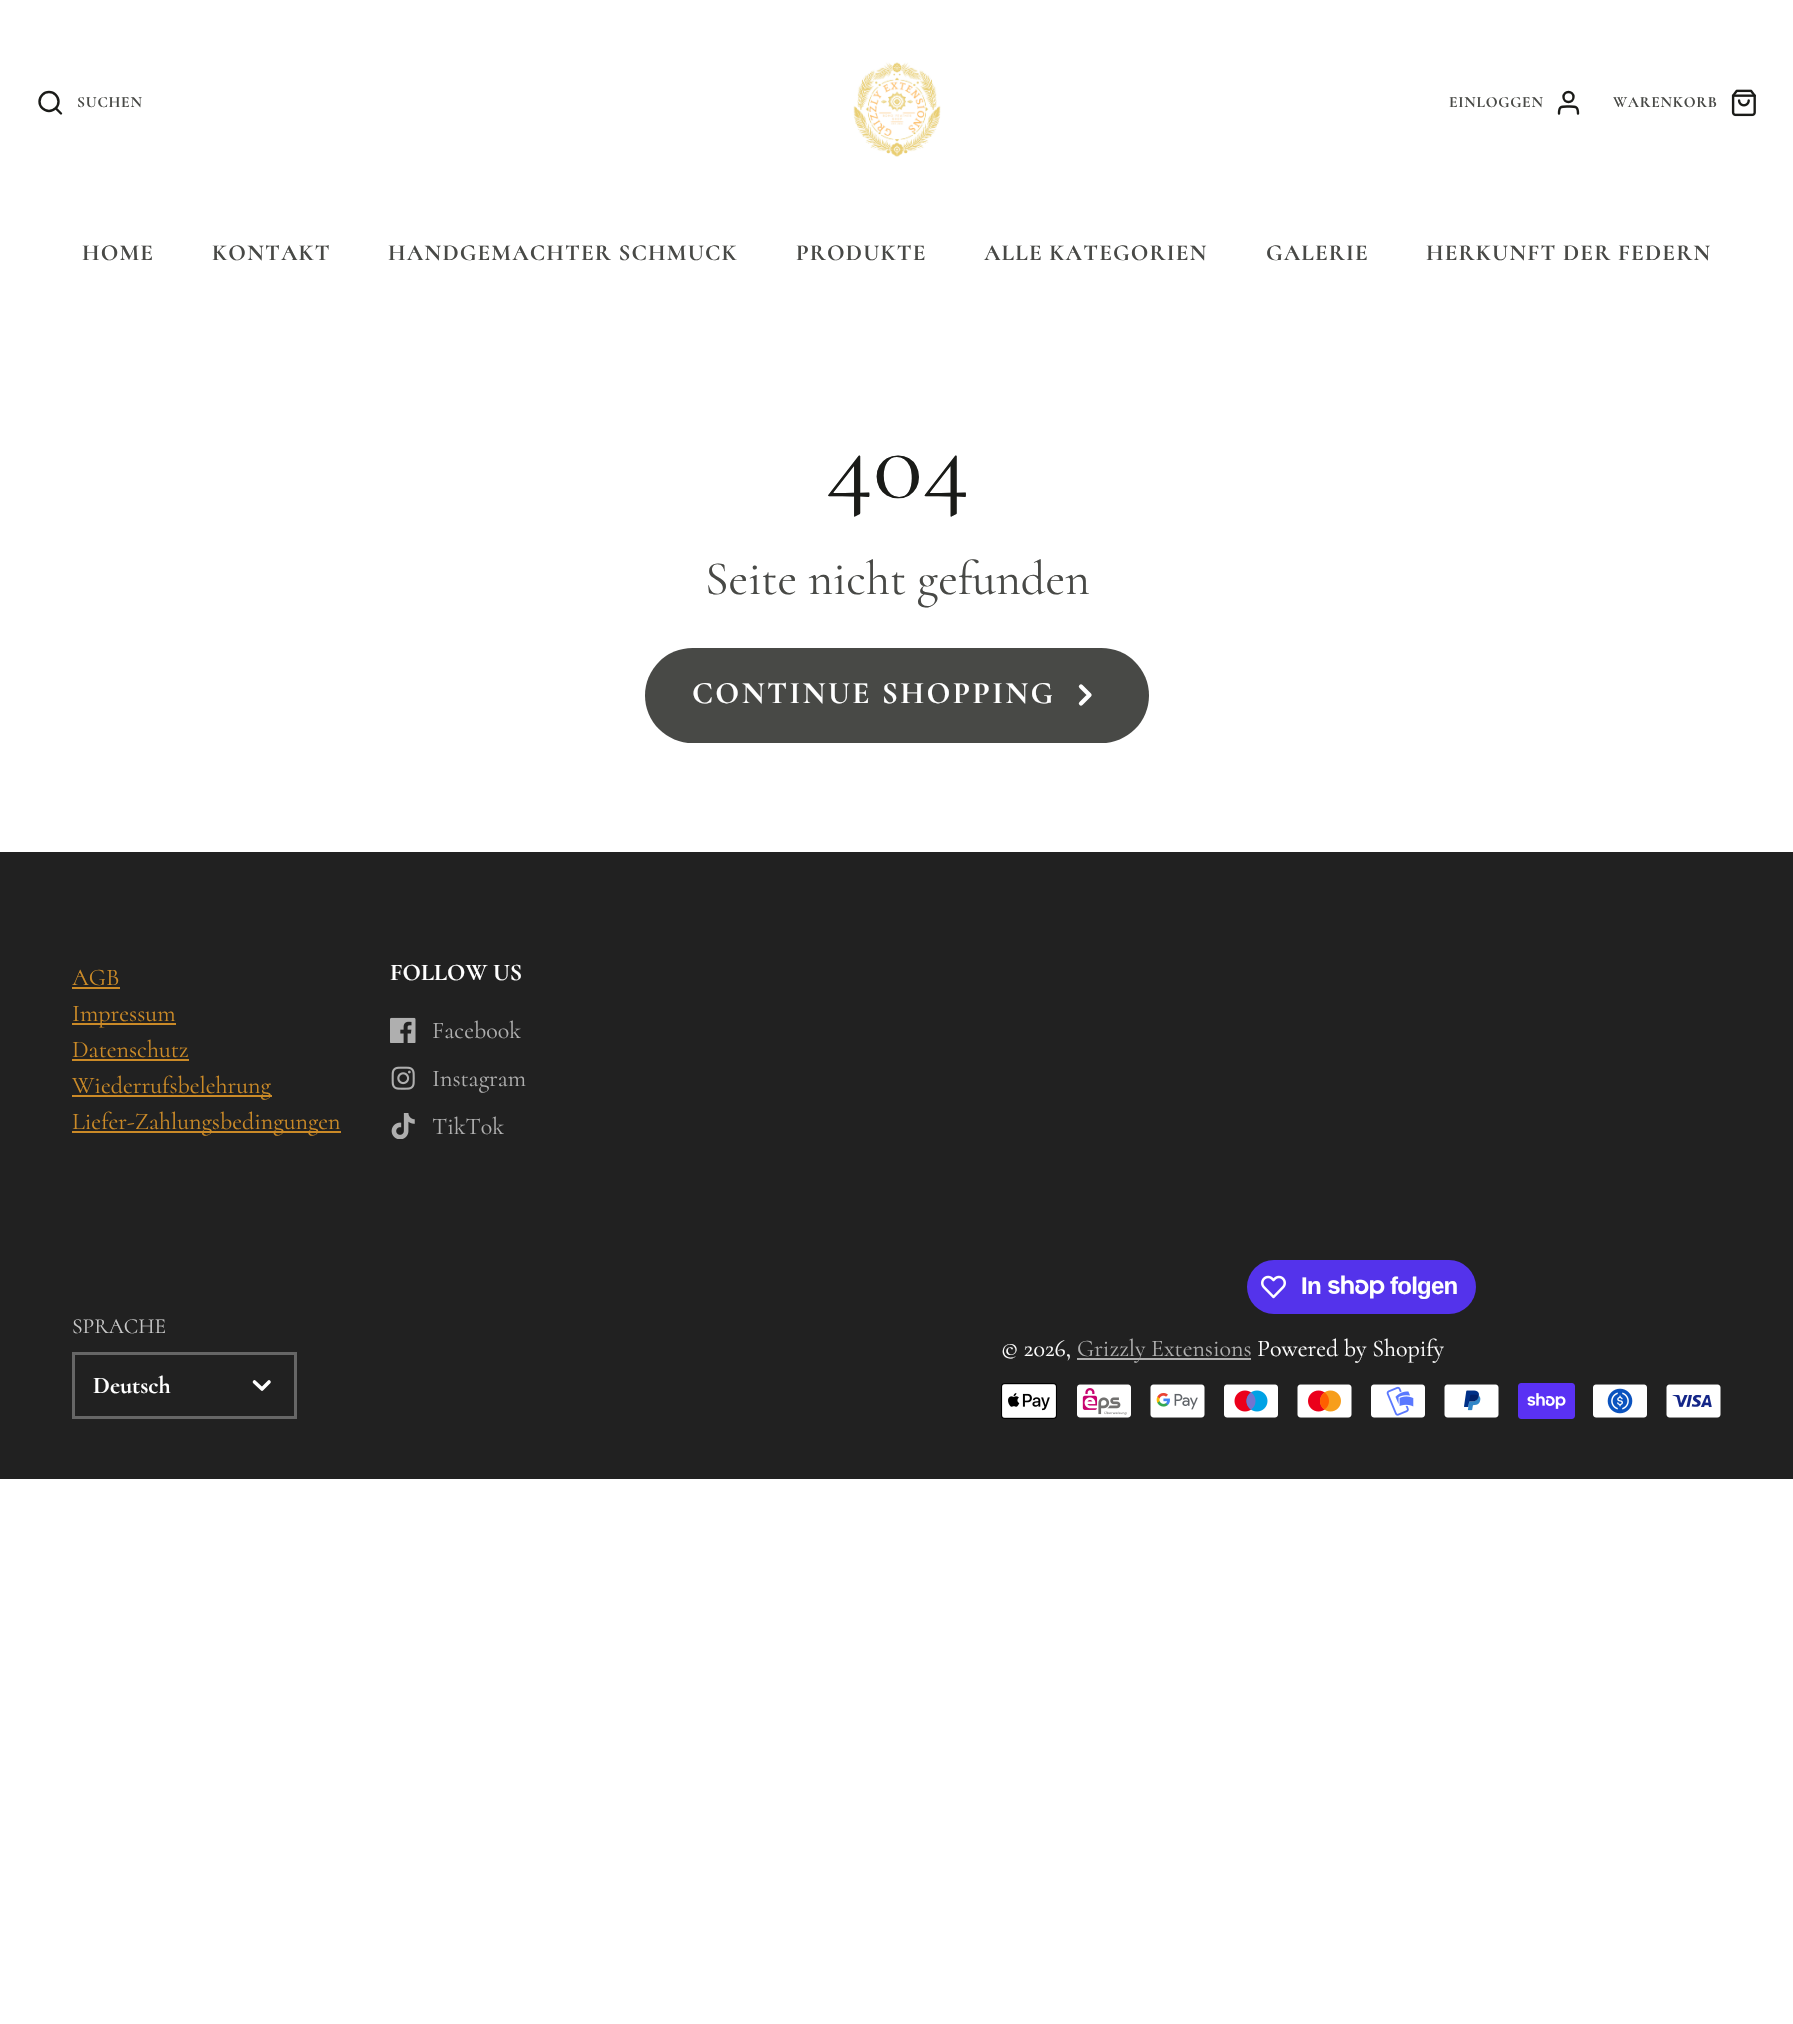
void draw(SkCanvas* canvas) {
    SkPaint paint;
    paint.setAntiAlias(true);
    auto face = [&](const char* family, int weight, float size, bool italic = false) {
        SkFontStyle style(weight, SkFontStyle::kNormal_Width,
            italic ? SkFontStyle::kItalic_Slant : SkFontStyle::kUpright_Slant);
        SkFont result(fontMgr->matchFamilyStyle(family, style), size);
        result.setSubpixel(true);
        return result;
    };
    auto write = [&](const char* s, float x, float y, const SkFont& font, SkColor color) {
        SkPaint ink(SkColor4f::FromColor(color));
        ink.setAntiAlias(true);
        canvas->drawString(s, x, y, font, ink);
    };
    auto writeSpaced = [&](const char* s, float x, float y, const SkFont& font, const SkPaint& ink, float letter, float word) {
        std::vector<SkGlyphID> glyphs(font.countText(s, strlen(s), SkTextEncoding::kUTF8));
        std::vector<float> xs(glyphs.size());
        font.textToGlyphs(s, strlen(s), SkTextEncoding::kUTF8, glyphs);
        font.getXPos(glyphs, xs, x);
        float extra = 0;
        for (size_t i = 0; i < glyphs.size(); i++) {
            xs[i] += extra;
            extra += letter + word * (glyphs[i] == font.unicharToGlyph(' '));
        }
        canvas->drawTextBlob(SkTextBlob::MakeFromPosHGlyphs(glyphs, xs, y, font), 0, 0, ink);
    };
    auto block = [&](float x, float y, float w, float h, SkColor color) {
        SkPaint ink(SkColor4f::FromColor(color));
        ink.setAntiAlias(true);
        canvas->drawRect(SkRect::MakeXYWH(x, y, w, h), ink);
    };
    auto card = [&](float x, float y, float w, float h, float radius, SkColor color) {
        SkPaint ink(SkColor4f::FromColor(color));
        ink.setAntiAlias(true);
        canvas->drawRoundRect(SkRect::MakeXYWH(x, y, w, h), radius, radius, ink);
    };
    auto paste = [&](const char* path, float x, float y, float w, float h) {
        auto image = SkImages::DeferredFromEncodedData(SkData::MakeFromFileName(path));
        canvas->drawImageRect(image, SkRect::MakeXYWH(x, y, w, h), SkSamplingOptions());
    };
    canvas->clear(SK_ColorWHITE);
    paint.setStyle(SkPaint::kStroke_Style);
    paint.setStrokeWidth(2.4f);
    paint.setColor(SkColorSetRGB(26, 27, 24));
    canvas->drawCircle(49, 101.5f, 9.5f, paint);
    paint.setStrokeCap(SkPaint::kRound_Cap);
    paint.setStrokeJoin(SkPaint::kRound_Join);
    canvas->drawPath(SkPathBuilder().moveTo(61, 113.5f).lineTo(56, 108.5f).detach(), paint);
    auto kFont1 = face("Cormorant", 700, 15.5f);
    paint.setStyle(SkPaint::kFill_Style);
    paint.setColor(SkColorSetRGB(72, 73, 70));
    writeSpaced("SUCHEN", 77, 107, kFont1, paint, 0.75f, 0);
    paste("pic1.png", 853, 62, 88, 95);
    writeSpaced("EINLOGGEN", 1449, 107, kFont1, paint, 0.75f, 0);
    paint.setStyle(SkPaint::kStroke_Style);
    paint.setStrokeCap(SkPaint::kButt_Cap);
    paint.setStrokeJoin(SkPaint::kMiter_Join);
    paint.setColor(SkColorSetRGB(26, 27, 24));
    canvas->drawCircle(1568.5f, 97, 5, paint);
    paint.setStrokeCap(SkPaint::kRound_Cap);
    paint.setStrokeJoin(SkPaint::kRound_Join);
    canvas->drawPath(SkPathBuilder().moveTo(1578, 113.5f).cubicTo(1578, 106, 1575, 106.5f, 1568.5f, 106.5f).cubicTo(1561.5f, 106.5f, 1559, 106, 1559, 113.5f).detach(), paint);
    paint.setStyle(SkPaint::kFill_Style);
    paint.setColor(SkColorSetRGB(72, 73, 70));
    writeSpaced("WARENKORB", 1613, 107, kFont1, paint, 0.75f, 0);
    paste("pic2.png", 1731, 89, 25, 28);
    auto kFont2 = face("Cormorant", 700, 23);
    writeSpaced("HOME", 82, 260, kFont2, paint, 1.15f, 0);
    writeSpaced("KONTAKT", 212, 260, kFont2, paint, 1.15f, 0);
    writeSpaced("HANDGEMACHTER SCHMUCK", 388, 260, kFont2, paint, 1.15f, 0);
    writeSpaced("PRODUKTE", 796, 260, kFont2, paint, 1.15f, 0);
    writeSpaced("ALLE KATEGORIEN", 984, 260, kFont2, paint, 1.15f, 0);
    writeSpaced("GALERIE", 1266, 260, kFont2, paint, 1.15f, 0);
    writeSpaced("HERKUNFT DER FEDERN", 1426, 260, kFont2, paint, 1.15f, 0);
    auto kFont3 = face("Cormorant", 400, 104);
    write("404", 826, 497, kFont3, SkColorSetRGB(26, 27, 24));
    auto kFont4 = face("Cormorant", 400, 48);
    write("Seite nicht gefunden", 705, 594, kFont4, SkColorSetRGB(72, 73, 70));
    card(645, 648, 504, 95, 47.5f, SkColorSetRGB(72, 73, 70));
    auto kFont5 = face("Cormorant", 700, 31.25f);
    paint.setColor(SK_ColorWHITE);
    writeSpaced("CONTINUE SHOPPING", 692, 703, kFont5, paint, 2.4f, 0);
    paint.setStyle(SkPaint::kStroke_Style);
    paint.setStrokeWidth(4.3f);
    canvas->drawPath(SkPathBuilder().moveTo(1081, 703.5f).lineTo(1089.5f, 695).lineTo(1081, 686.5f).detach(), paint);
    block(0, 852, 1793, 627, SkColorSetRGB(33, 33, 33));
    auto kFont6 = face("Cormorant", 400, 24);
    write("AGB", 72, 985, kFont6, SkColorSetRGB(203, 138, 39));
    block(72, 987, 48, 2, SkColorSetRGB(203, 138, 39));
    block(72, 1023, 104, 2, SkColorSetRGB(203, 138, 39));
    write("Impressum", 72, 1021, kFont6, SkColorSetRGB(203, 138, 39));
    write("Datenschutz", 72, 1057, kFont6, SkColorSetRGB(203, 138, 39));
    block(72, 1059, 117, 2, SkColorSetRGB(203, 138, 39));
    block(72, 1095, 200, 2, SkColorSetRGB(203, 138, 39));
    write("Wiederrufsbelehrung", 72, 1093, kFont6, SkColorSetRGB(203, 138, 39));
    block(72, 1131, 269, 2, SkColorSetRGB(203, 138, 39));
    write("Liefer-Zahlungsbedingungen", 72, 1129, kFont6, SkColorSetRGB(203, 138, 39));
    auto kFont7 = face("Cormorant", 700, 24);
    write("FOLLOW US", 390, 980, kFont7, SK_ColorWHITE);
    paste("pic3.png", 390, 1017, 26, 26);
    write("Facebook", 432, 1038, kFont6, SkColorSetRGB(175, 175, 175));
    paste("pic4.png", 391, 1066, 24, 24);
    write("Instagram", 432, 1086, kFont6, SkColorSetRGB(175, 175, 175));
    paste("pic5.png", 391, 1113, 24, 26);
    write("TikTok", 432, 1134, kFont6, SkColorSetRGB(175, 175, 175));
    auto kFont8 = face("Cormorant", 400, 21.5f);
    write("SPRACHE", 72, 1333, kFont8, SkColorSetRGB(200, 200, 200));
    paint.setStrokeWidth(3);
    paint.setStrokeCap(SkPaint::kButt_Cap);
    paint.setStrokeJoin(SkPaint::kMiter_Join);
    paint.setColor(SkColorSetRGB(102, 102, 102));
    canvas->drawRect(SkRect::MakeXYWH(73.5f, 1353.5f, 222, 64), paint);
    write("Deutsch", 93, 1393, kFont7, SK_ColorWHITE);
    paint.setStrokeWidth(3.6f);
    paint.setStrokeCap(SkPaint::kRound_Cap);
    paint.setStrokeJoin(SkPaint::kRound_Join);
    paint.setColor(SK_ColorWHITE);
    canvas->drawPath(SkPathBuilder().moveTo(254.5f, 1382).lineTo(262, 1389).lineTo(269, 1382).detach(), paint);
    card(1247, 1260, 229, 54, 27, SkColorSetRGB(84, 51, 235));
    paste("pic6.png", 1261, 1275, 25, 24);
    auto kFont9 = face("Liberation Sans", 700, 24);
    paint.setStyle(SkPaint::kFill_Style);
    writeSpaced("In", 1301, 1294, kFont9, paint, -0.75f, 0);
    paste("pic7.png", 1328, 1275, 57, 24);
    writeSpaced("folgen", 1390, 1294, kFont9, paint, -0.75f, 0);
    write("© 2026,", 1001, 1356, kFont6, SK_ColorWHITE);
    block(1077, 1358, 174, 2, SkColorSetRGB(175, 175, 175));
    write("Grizzly Extensions", 1077, 1356, kFont6, SkColorSetRGB(175, 175, 175));
    write("Powered by Shopify", 1257, 1356, kFont6, SK_ColorWHITE);
    paste("pic8.png", 1001, 1383, 56, 36);
    paste("pic9.png", 1077, 1384, 54, 34);
    paste("pic10.png", 1150, 1384, 55, 34);
    paste("pic11.png", 1224, 1384, 54, 34);
    paste("pic12.png", 1297, 1384, 55, 34);
    paste("pic13.png", 1371, 1384, 54, 34);
    paste("pic14.png", 1444, 1384, 55, 34);
    paste("pic15.png", 1518, 1383, 57, 36);
    paste("pic16.png", 1593, 1384, 54, 34);
    paste("pic17.png", 1666, 1384, 55, 34);
}
